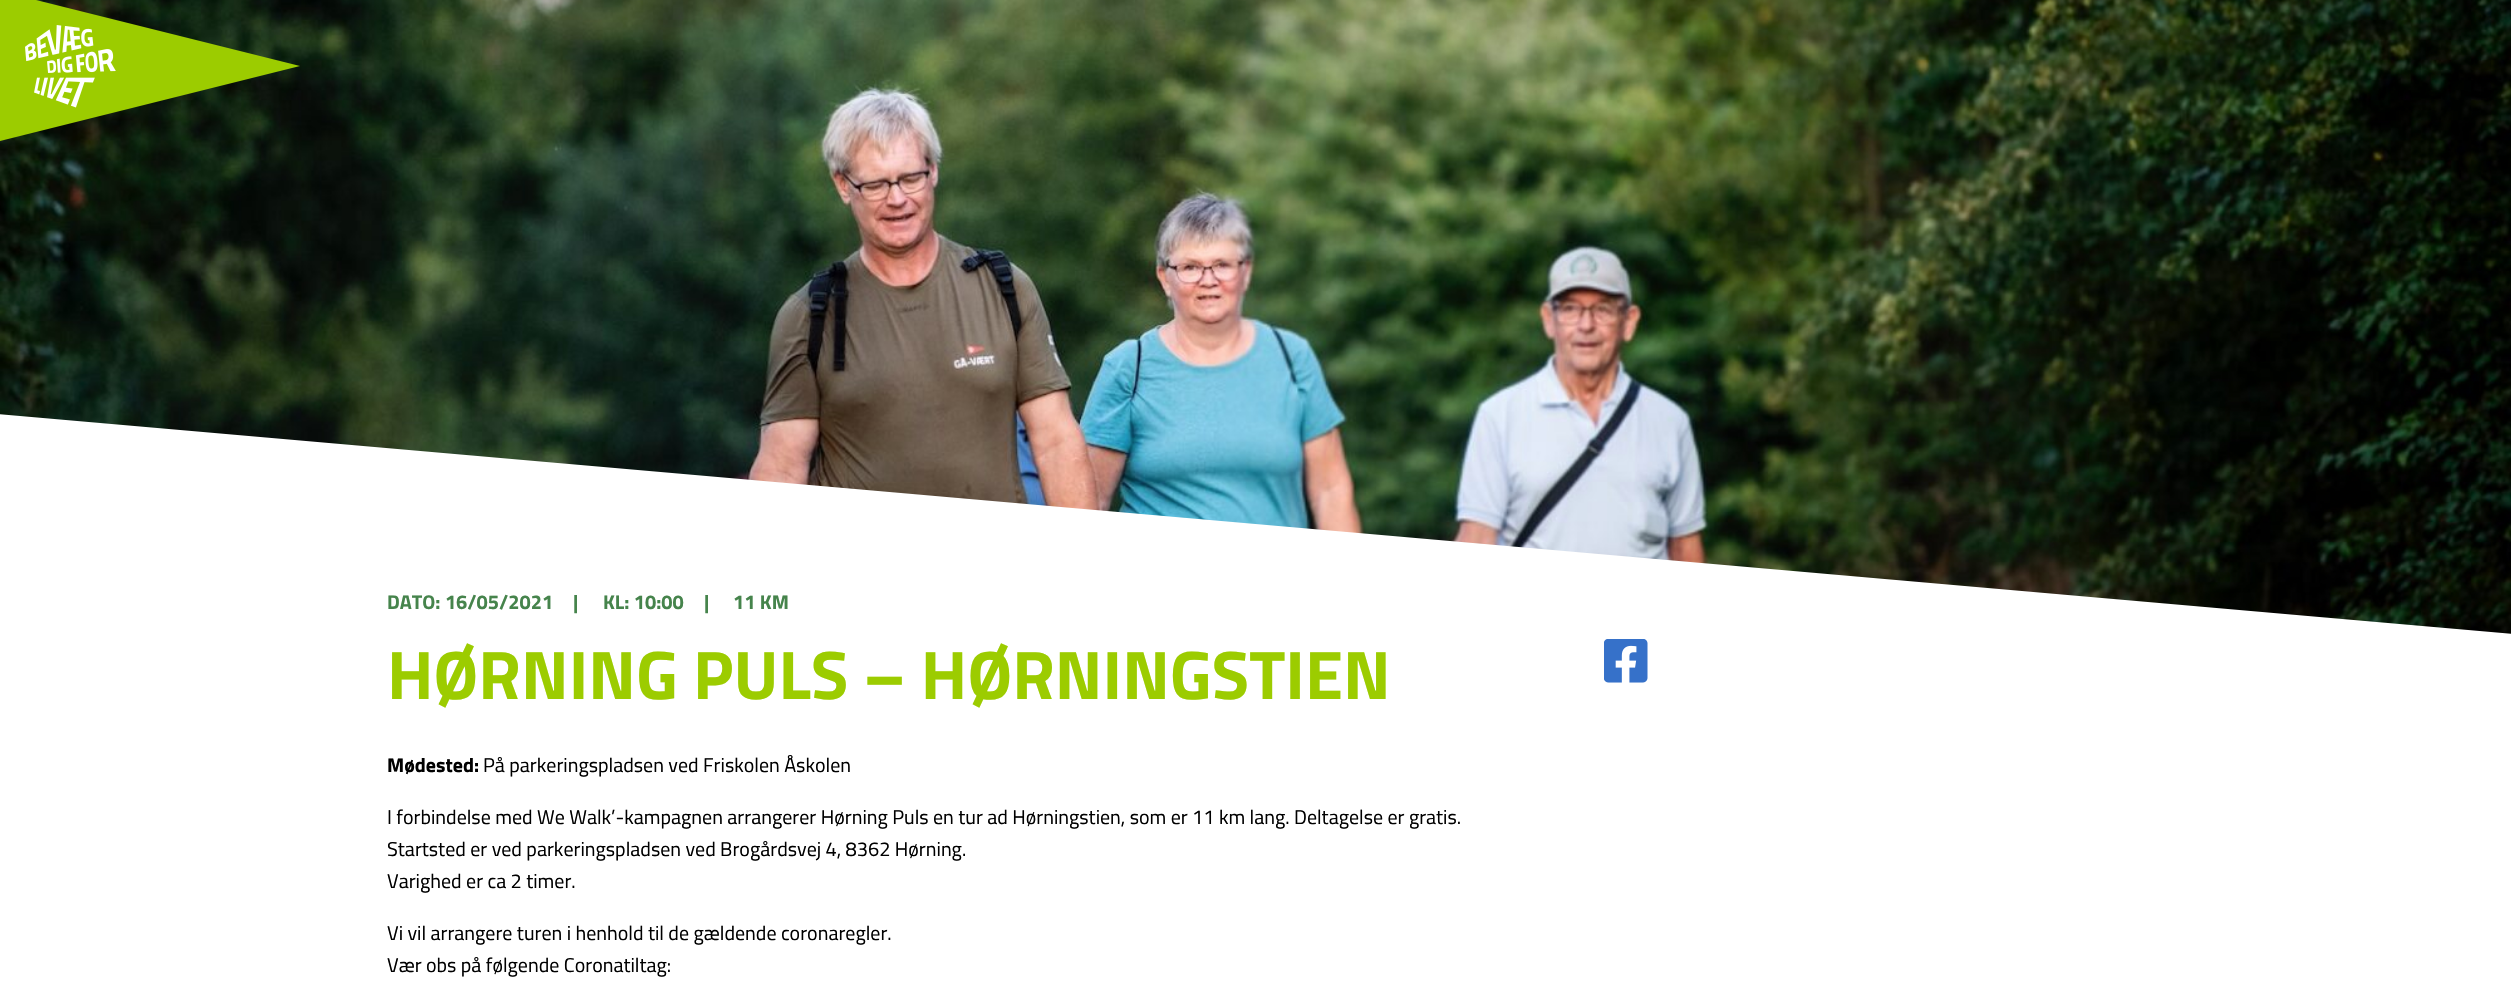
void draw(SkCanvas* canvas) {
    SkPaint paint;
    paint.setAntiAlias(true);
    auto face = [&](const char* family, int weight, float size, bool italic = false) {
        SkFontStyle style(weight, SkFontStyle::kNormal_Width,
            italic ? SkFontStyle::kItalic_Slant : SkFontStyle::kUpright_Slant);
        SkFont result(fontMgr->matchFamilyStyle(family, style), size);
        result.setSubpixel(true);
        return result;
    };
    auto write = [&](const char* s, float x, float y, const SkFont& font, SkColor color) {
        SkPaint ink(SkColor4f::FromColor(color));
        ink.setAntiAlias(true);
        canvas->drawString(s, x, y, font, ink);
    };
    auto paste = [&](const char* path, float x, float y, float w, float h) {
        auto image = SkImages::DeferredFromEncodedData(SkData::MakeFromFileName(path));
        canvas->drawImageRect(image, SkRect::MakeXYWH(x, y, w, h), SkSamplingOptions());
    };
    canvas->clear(SK_ColorWHITE);
    paste("pic2.png", 0, 0, 2511, 634);
    paint.setColor(SkColorSetRGB(156, 204, 0));
    canvas->drawPath(SkPathBuilder().moveTo(0, 141).lineTo(0, -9).lineTo(300, 66).close().detach(), paint);
    paste("pic1.png", 25, 25, 91, 83);
    canvas->save();
    canvas->clipRect(SkRect::MakeXYWH(0, 0, 2511, 649));
    paint.setColor(SK_ColorWHITE);
    canvas->drawPath(SkPathBuilder().moveTo(-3, 414).lineTo(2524, 635).lineTo(2502, 884).lineTo(-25, 663).close().detach(), paint);
    canvas->restore();
    auto kFont1 = face("Titillium Web", 700, 20);
    write("DATO: 16/05/2021", 387, 609, kFont1, SkColorSetRGB(70, 132, 76));
    write("|", 573, 609, kFont1, SkColorSetRGB(70, 132, 76));
    write("KL: 10:00", 603, 609, kFont1, SkColorSetRGB(70, 132, 76));
    write("|", 704, 609, kFont1, SkColorSetRGB(70, 132, 76));
    write("11 KM", 733, 609, kFont1, SkColorSetRGB(70, 132, 76));
    auto kFont2 = face("Titillium Web", 700, 68.75f);
    write("HØRNING PULS – HØRNINGSTIEN", 387, 699, kFont2, SkColorSetRGB(156, 204, 0));
    write("Mødested:", 387, 772, kFont1, SK_ColorBLACK);
    auto kFont3 = face("Titillium Web", 400, 20);
    write("På parkeringspladsen ved Friskolen Åskolen", 483, 772, kFont3, SK_ColorBLACK);
    write("I forbindelse med We Walk’-kampagnen arrangerer Hørning Puls en tur ad Hørningstien, som er 11 km lang. Deltagelse er gratis.", 387, 824, kFont3, SK_ColorBLACK);
    write("Startsted er ved parkeringspladsen ved Brogårdsvej 4, 8362 Hørning.", 387, 856, kFont3, SK_ColorBLACK);
    write("Varighed er ca 2 timer.", 387, 888, kFont3, SK_ColorBLACK);
    write("Vi vil arrangere turen i henhold til de gældende coronaregler.", 387, 940, kFont3, SK_ColorBLACK);
    write("Vær obs på følgende Coronatiltag:", 387, 972, kFont3, SK_ColorBLACK);
    paste("pic3.png", 1604, 639, 44, 44);
}
